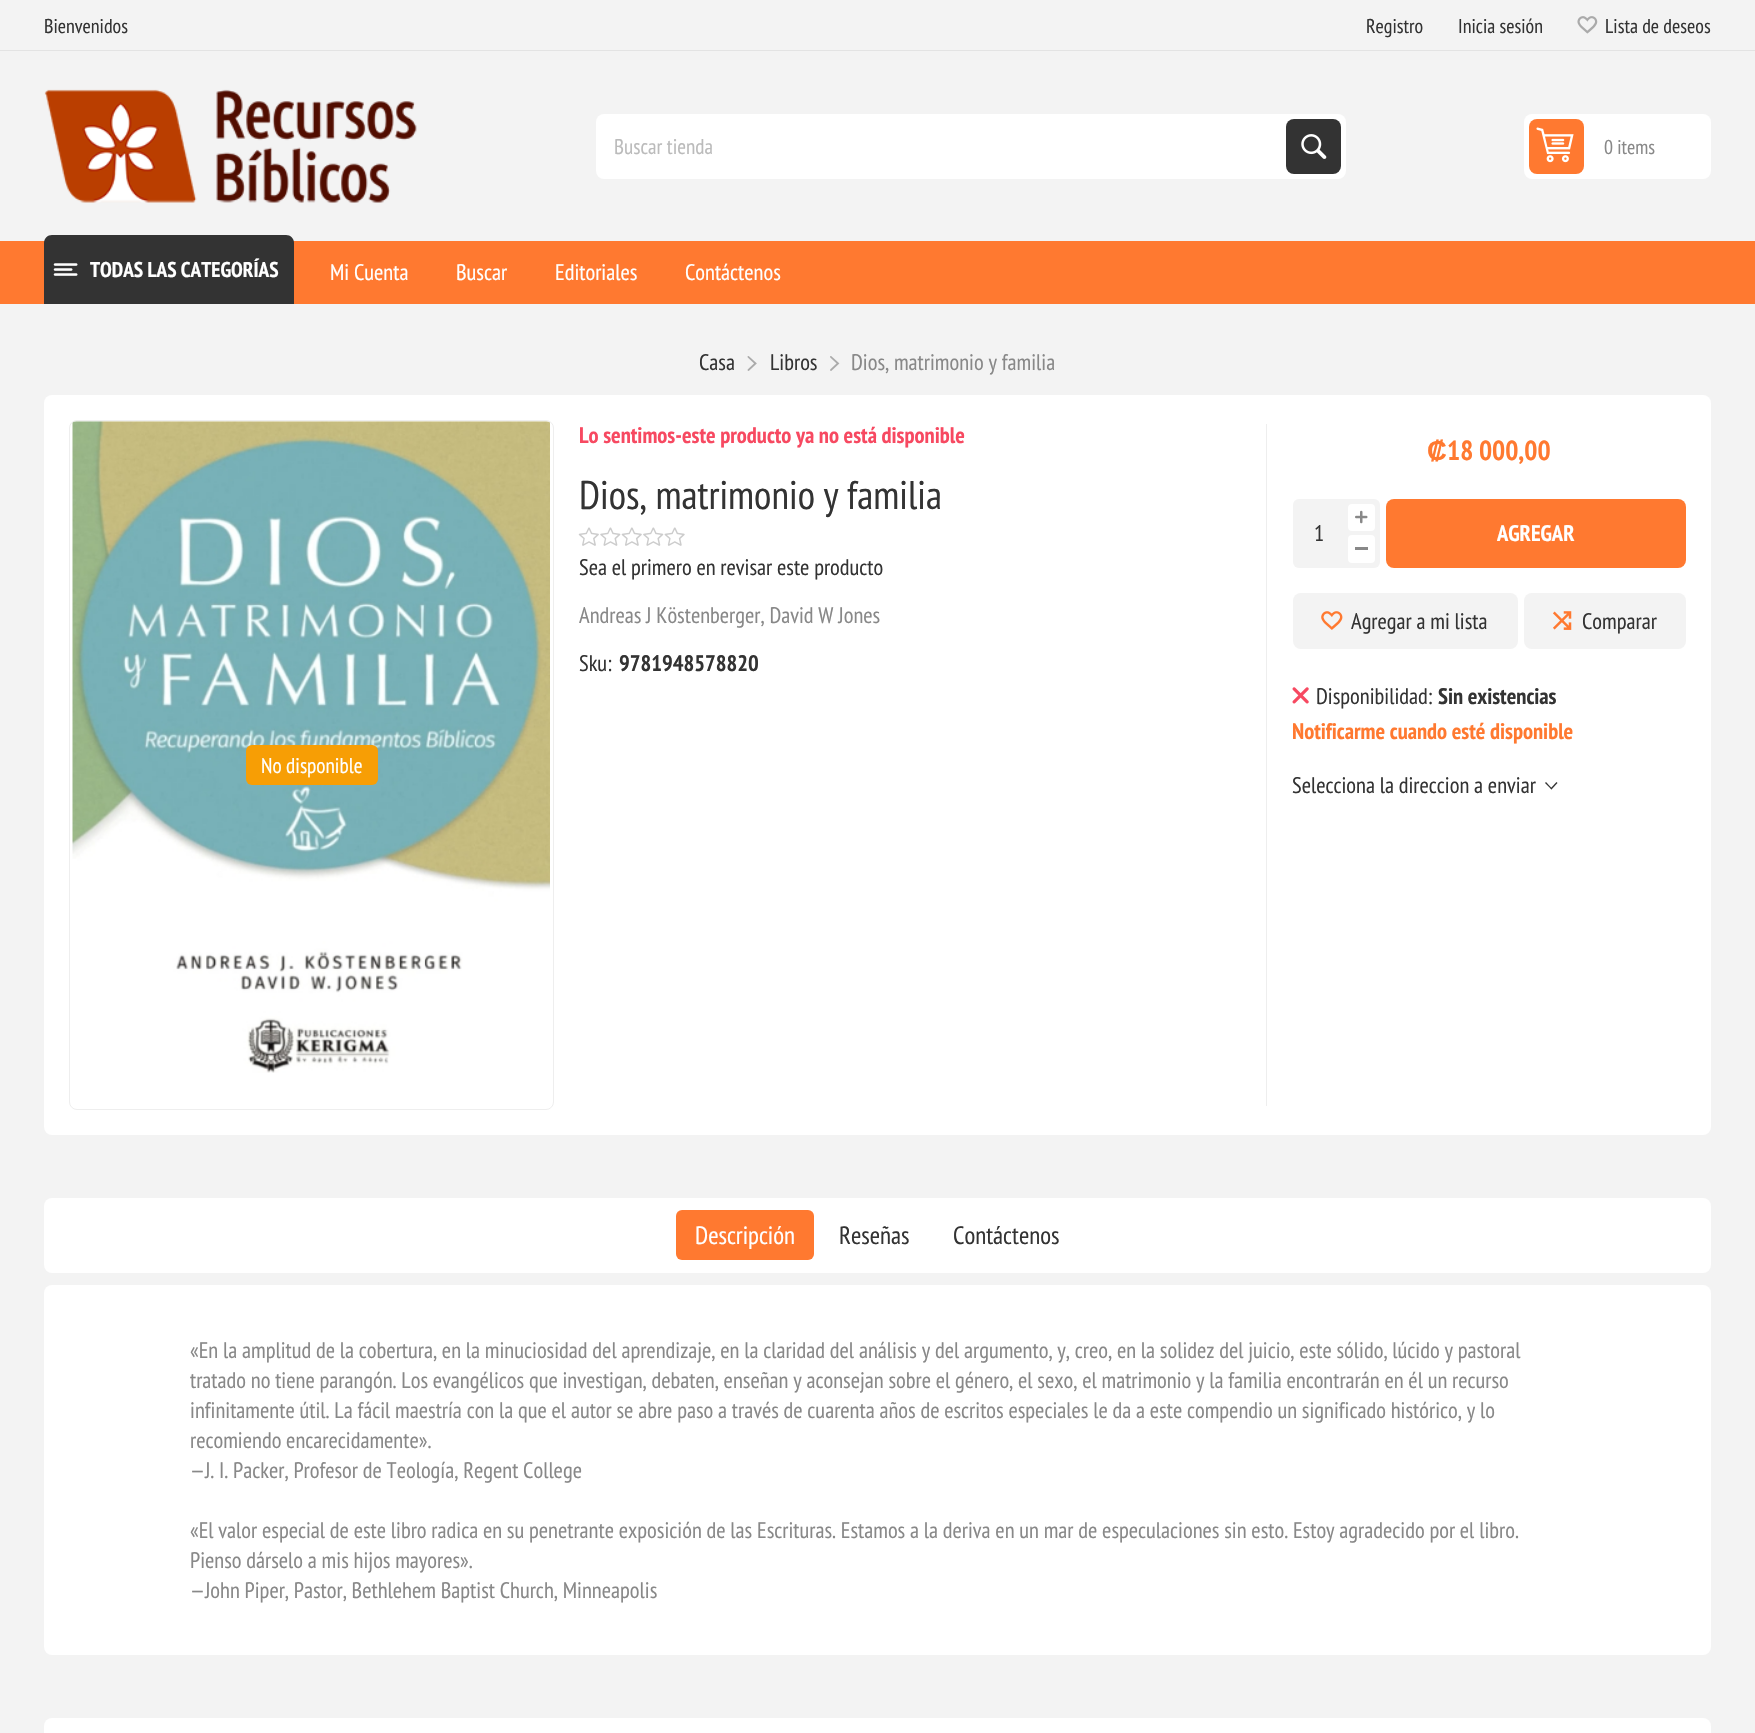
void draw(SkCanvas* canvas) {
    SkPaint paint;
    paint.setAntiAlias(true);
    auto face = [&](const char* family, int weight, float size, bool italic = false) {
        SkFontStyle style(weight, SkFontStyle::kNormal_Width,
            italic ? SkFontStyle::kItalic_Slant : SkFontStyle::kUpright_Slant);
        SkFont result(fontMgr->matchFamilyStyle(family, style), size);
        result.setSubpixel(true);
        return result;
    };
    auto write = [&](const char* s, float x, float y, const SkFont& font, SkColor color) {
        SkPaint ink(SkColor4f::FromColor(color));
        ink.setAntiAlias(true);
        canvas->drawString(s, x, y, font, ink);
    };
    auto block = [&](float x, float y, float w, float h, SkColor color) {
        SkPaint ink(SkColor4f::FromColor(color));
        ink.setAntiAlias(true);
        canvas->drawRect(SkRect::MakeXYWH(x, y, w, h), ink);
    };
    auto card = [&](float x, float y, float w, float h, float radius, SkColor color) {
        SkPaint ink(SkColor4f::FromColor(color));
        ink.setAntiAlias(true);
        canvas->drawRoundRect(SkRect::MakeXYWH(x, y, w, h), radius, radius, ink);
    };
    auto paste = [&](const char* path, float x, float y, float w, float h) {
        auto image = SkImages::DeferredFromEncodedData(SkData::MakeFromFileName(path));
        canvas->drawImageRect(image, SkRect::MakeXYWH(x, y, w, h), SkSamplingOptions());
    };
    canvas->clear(SkColorSetRGB(243, 243, 243));
    auto kFont1 = face("PT Sans Narrow", 400, 20);
    write("Bienvenidos", 44, 33, kFont1, SkColorSetRGB(51, 51, 51));
    write("Registro", 1366, 33, kFont1, SkColorSetRGB(51, 51, 51));
    write("Inicia sesión", 1458, 33, kFont1, SkColorSetRGB(51, 51, 51));
    paste("pic1.png", 1577, 16, 21, 18);
    write("Lista de deseos", 1605, 33, kFont1, SkColorSetRGB(51, 51, 51));
    block(0, 50, 1755, 1, SkColorSetRGB(227, 227, 227));
    paste("pic2.png", 44, 89, 373, 114);
    card(596, 114, 750, 65, 8, SK_ColorWHITE);
    auto kFont2 = face("PT Sans Narrow", 400, 21.25f);
    write("Buscar tienda", 614, 154, kFont2, SkColorSetRGB(187, 187, 187));
    card(1286, 119, 55, 55, 8, SkColorSetRGB(51, 51, 51));
    paste("pic3.png", 1301, 134, 26, 25);
    card(1524, 114, 187, 65, 8, SK_ColorWHITE);
    card(1529, 119, 55, 55, 8, SkColorSetRGB(255, 121, 48));
    paste("pic4.png", 1536, 127, 38, 36);
    write("0 items", 1604, 154, kFont1, SkColorSetRGB(136, 136, 136));
    block(0, 241, 1755, 63, SkColorSetRGB(255, 121, 48));
    paint.setColor(SkColorSetRGB(51, 51, 51));
    canvas->drawPath(SkPathBuilder().moveTo(52, 235).lineTo(286, 235).cubicTo(290.5f, 235, 294, 238.5f, 294, 243).lineTo(294, 304).lineTo(44, 304).lineTo(44, 243).cubicTo(44, 238.5f, 47.5f, 235, 52, 235).close().detach(), paint);
    paste("pic5.png", 53, 263, 25, 13);
    auto kFont3 = face("PT Sans Narrow", 700, 21.25f);
    write("TODAS LAS CATEGORÍAS", 90, 277, kFont3, SK_ColorWHITE);
    auto kFont4 = face("PT Sans Narrow", 400, 22.5f);
    write("Mi Cuenta", 330, 280, kFont4, SK_ColorWHITE);
    write("Buscar", 456, 280, kFont4, SK_ColorWHITE);
    write("Editoriales", 555, 280, kFont4, SK_ColorWHITE);
    write("Contáctenos", 685, 280, kFont4, SK_ColorWHITE);
    write("Casa", 699, 370, kFont4, SkColorSetRGB(51, 51, 51));
    paste("pic6.png", 747, 356, 10, 15);
    write("Libros", 770, 370, kFont4, SkColorSetRGB(51, 51, 51));
    paste("pic7.png", 830, 356, 10, 15);
    write("Dios, matrimonio y familia", 851, 370, kFont4, SkColorSetRGB(136, 136, 136));
    card(44, 395, 1667, 740, 8, SK_ColorWHITE);
    paint.setStyle(SkPaint::kStroke_Style);
    paint.setStrokeWidth(1);
    paint.setColor(SkColorSetRGB(238, 238, 238));
    canvas->drawRoundRect(SkRect::MakeXYWH(69.5f, 420.5f, 484, 689), 7.5f, 7.5f, paint);
    paste("pic8.png", 72, 421, 478, 652);
    card(246, 745, 132, 40, 6, SkColorSetRGB(247, 158, 5));
    write("No disponible", 261, 773, kFont2, SK_ColorWHITE);
    auto kFont5 = face("PT Sans Narrow", 700, 22.5f);
    write("Lo sentimos-este producto ya no está disponible", 579, 443, kFont5, SkColorSetRGB(247, 73, 97));
    auto kFont6 = face("PT Sans Narrow", 400, 40);
    write("Dios, matrimonio y familia", 579, 509, kFont6, SkColorSetRGB(51, 51, 51));
    paste("pic9.png", 578, 527, 107, 19);
    write("Sea el primero en revisar este producto", 579, 575, kFont4, SkColorSetRGB(51, 51, 51));
    write("Andreas J Köstenberger, David W Jones", 579, 623, kFont4, SkColorSetRGB(136, 136, 136));
    write("Sku:", 579, 671, kFont4, SkColorSetRGB(51, 51, 51));
    write("9781948578820", 619, 671, kFont5, SkColorSetRGB(51, 51, 51));
    block(1266, 424, 1, 682, SkColorSetRGB(238, 238, 238));
    auto kFont7 = face("Liberation Sans", 700, 27.5f);
    write("₡", 1427, 460, kFont7, SkColorSetRGB(255, 121, 48));
    auto kFont8 = face("PT Sans Narrow", 700, 27.5f);
    write("18 000,00", 1447, 460, kFont8, SkColorSetRGB(255, 121, 48));
    card(1293, 499, 87, 69, 6, SkColorSetRGB(243, 243, 243));
    card(1348, 504, 27, 27, 4, SK_ColorWHITE);
    paste("pic10.png", 1355, 510, 13, 14);
    write("1", 1314, 541, kFont4, SkColorSetRGB(51, 51, 51));
    card(1348, 535, 27, 28, 4, SK_ColorWHITE);
    block(1355, 547, 13, 3, SkColorSetRGB(136, 136, 136));
    card(1386, 499, 300, 69, 8, SkColorSetRGB(255, 121, 48));
    write("AGREGAR", 1497, 541, kFont5, SK_ColorWHITE);
    card(1293, 593, 225, 56, 8, SkColorSetRGB(243, 243, 243));
    paste("pic11.png", 1321, 611, 22, 19);
    write("Agregar a mi lista", 1351, 629, kFont4, SkColorSetRGB(51, 51, 51));
    card(1524, 593, 162, 56, 8, SkColorSetRGB(243, 243, 243));
    paste("pic12.png", 1553, 611, 19, 19);
    write("Comparar", 1582, 629, kFont4, SkColorSetRGB(51, 51, 51));
    paste("pic13.png", 1292, 687, 17, 17);
    write("Disponibilidad:", 1316, 704, kFont4, SkColorSetRGB(51, 51, 51));
    write("Sin existencias", 1438, 704, kFont5, SkColorSetRGB(51, 51, 51));
    write("Notificarme cuando esté disponible", 1292, 739, kFont5, SkColorSetRGB(255, 121, 48));
    write("Selecciona la direccion a enviar", 1292, 793, kFont4, SkColorSetRGB(51, 51, 51));
    paint.setStyle(SkPaint::kFill_Style);
    paint.setColor(SkColorSetRGB(51, 51, 51));
    canvas->drawPath(SkPathBuilder().moveTo(1556.5f, 782).lineTo(1557.5f, 783).lineTo(1551.5f, 789.5f).lineTo(1550.5f, 788.5f).close().detach(), paint);
    canvas->drawPath(SkPathBuilder().moveTo(1546, 782).lineTo(1552, 788.5f).lineTo(1551.5f, 789.5f).lineTo(1545, 783).close().detach(), paint);
    card(44, 1198, 1667, 75, 8, SK_ColorWHITE);
    card(676, 1210, 138, 50, 6, SkColorSetRGB(255, 121, 48));
    auto kFont9 = face("PT Sans Narrow", 400, 25);
    write("Descripción", 695, 1244, kFont9, SK_ColorWHITE);
    write("Reseñas", 839, 1244, kFont9, SkColorSetRGB(51, 51, 51));
    write("Contáctenos", 953, 1244, kFont9, SkColorSetRGB(51, 51, 51));
    card(44, 1285, 1667, 370, 8, SK_ColorWHITE);
    write("«En la amplitud de la cobertura, en la minuciosidad del aprendizaje, en la claridad del análisis y del argumento, y, creo, en la solidez del juicio, este sólido, lúcido y pastoral", 190, 1358, kFont4, SkColorSetRGB(136, 136, 136));
    write("tratado no tiene parangón. Los evangélicos que investigan, debaten, enseñan y aconsejan sobre el género, el sexo, el matrimonio y la familia encontrarán en él un recurso", 190, 1388, kFont4, SkColorSetRGB(136, 136, 136));
    write("infinitamente útil. La fácil maestría con la que el autor se abre paso a través de cuarenta años de escritos especiales le da a este compendio un significado histórico, y lo", 190, 1418, kFont4, SkColorSetRGB(136, 136, 136));
    write("recomiendo encarecidamente».", 190, 1448, kFont4, SkColorSetRGB(136, 136, 136));
    write("—J. I. Packer, Profesor de Teología, Regent College", 190, 1478, kFont4, SkColorSetRGB(136, 136, 136));
    write("«El valor especial de este libro radica en su penetrante exposición de las Escrituras. Estamos a la deriva en un mar de especulaciones sin esto. Estoy agradecido por el libro.", 190, 1538, kFont4, SkColorSetRGB(136, 136, 136));
    write("Pienso dárselo a mis hijos mayores».", 190, 1568, kFont4, SkColorSetRGB(136, 136, 136));
    write("—John Piper, Pastor, Bethlehem Baptist Church, Minneapolis", 190, 1598, kFont4, SkColorSetRGB(136, 136, 136));
    card(44, 1718, 1667, 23, 8, SK_ColorWHITE);
}
